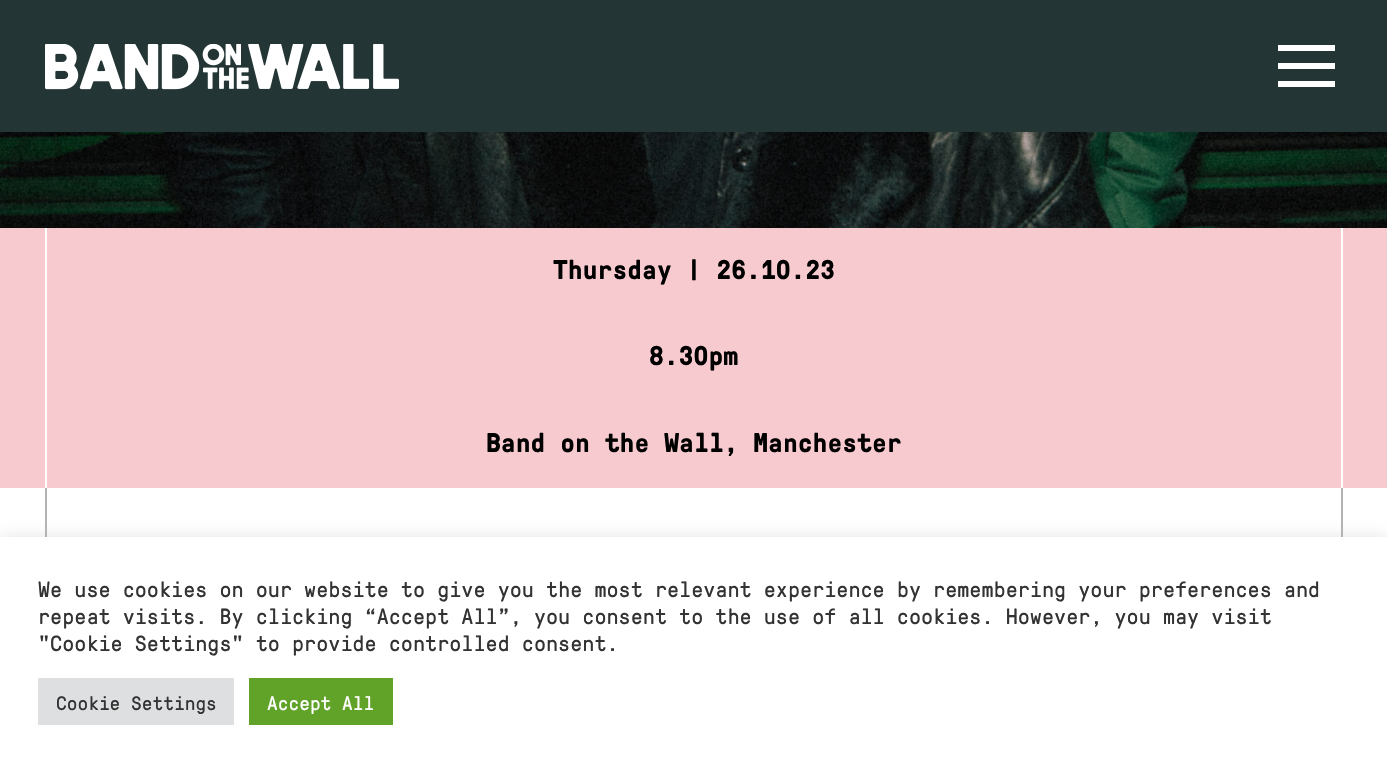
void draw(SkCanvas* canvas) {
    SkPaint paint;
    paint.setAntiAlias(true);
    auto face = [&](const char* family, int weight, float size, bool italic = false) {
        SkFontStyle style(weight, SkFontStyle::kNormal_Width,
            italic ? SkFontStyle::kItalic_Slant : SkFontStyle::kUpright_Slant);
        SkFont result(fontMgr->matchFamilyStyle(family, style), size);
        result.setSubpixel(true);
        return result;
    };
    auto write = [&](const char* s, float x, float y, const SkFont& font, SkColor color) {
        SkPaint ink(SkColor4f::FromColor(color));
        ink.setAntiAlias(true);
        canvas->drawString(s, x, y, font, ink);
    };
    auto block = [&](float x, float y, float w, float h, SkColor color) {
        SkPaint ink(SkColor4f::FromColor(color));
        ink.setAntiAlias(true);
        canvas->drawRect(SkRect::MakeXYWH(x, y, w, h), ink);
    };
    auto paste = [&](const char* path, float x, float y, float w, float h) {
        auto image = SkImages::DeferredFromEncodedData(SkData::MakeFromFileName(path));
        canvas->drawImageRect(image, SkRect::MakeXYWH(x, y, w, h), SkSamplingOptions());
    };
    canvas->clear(SK_ColorWHITE);
    block(0, 0, 1387, 132, SkColorSetRGB(36, 53, 53));
    paste("pic1.png", 45, 44, 354, 46);
    block(1278, 45, 57, 6, SK_ColorWHITE);
    block(1278, 63, 57, 6, SK_ColorWHITE);
    block(1278, 81, 57, 6, SK_ColorWHITE);
    paste("pic2.png", 0, 132, 1387, 96);
    block(0, 228, 1387, 260, SkColorSetRGB(247, 202, 208));
    block(45, 228, 2, 260, SK_ColorWHITE);
    auto kFont1 = face("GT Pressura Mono", 700, 27);
    write("Thursday | 26.10.23", 553, 279, kFont1, SK_ColorBLACK);
    block(1341, 228, 2, 260, SK_ColorWHITE);
    write("8.30pm", 649, 365, kFont1, SK_ColorBLACK);
    write("Band on the Wall, Manchester", 486, 452, kFont1, SK_ColorBLACK);
    block(45, 488, 2, 49, SkColorSetRGB(179, 179, 179));
    block(1341, 488, 2, 49, SkColorSetRGB(179, 179, 179));
    paint.setColor(SkColorSetARGB(77, 172, 171, 171));
    paint.setMaskFilter(SkMaskFilter::MakeBlur(kNormal_SkBlurStyle, 7.5f));
    canvas->drawRect(SkRect::MakeXYWH(0, 536, 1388, 232), paint);
    paint.setMaskFilter(nullptr);
    block(0, 537, 1387, 232, SK_ColorWHITE);
    auto kFont2 = face("GT Pressura Mono", 400, 22);
    write("We use cookies on our website to give you the most relevant experience by remembering your preferences and", 38, 597, kFont2, SkColorSetRGB(51, 51, 51));
    write("repeat visits. By clicking “Accept All”, you consent to the use of all cookies. However, you may visit", 38, 624, kFont2, SkColorSetRGB(51, 51, 51));
    write("\"Cookie Settings\" to provide controlled consent.", 38, 651, kFont2, SkColorSetRGB(51, 51, 51));
    block(38, 678, 196, 47, SkColorSetRGB(222, 223, 224));
    auto kFont3 = face("GT Pressura Mono", 400, 19.5f);
    write("Cookie Settings", 56, 710, kFont3, SkColorSetRGB(51, 51, 51));
    block(249, 678, 144, 47, SkColorSetRGB(97, 162, 41));
    write("Accept All", 267, 710, kFont3, SK_ColorWHITE);
}
